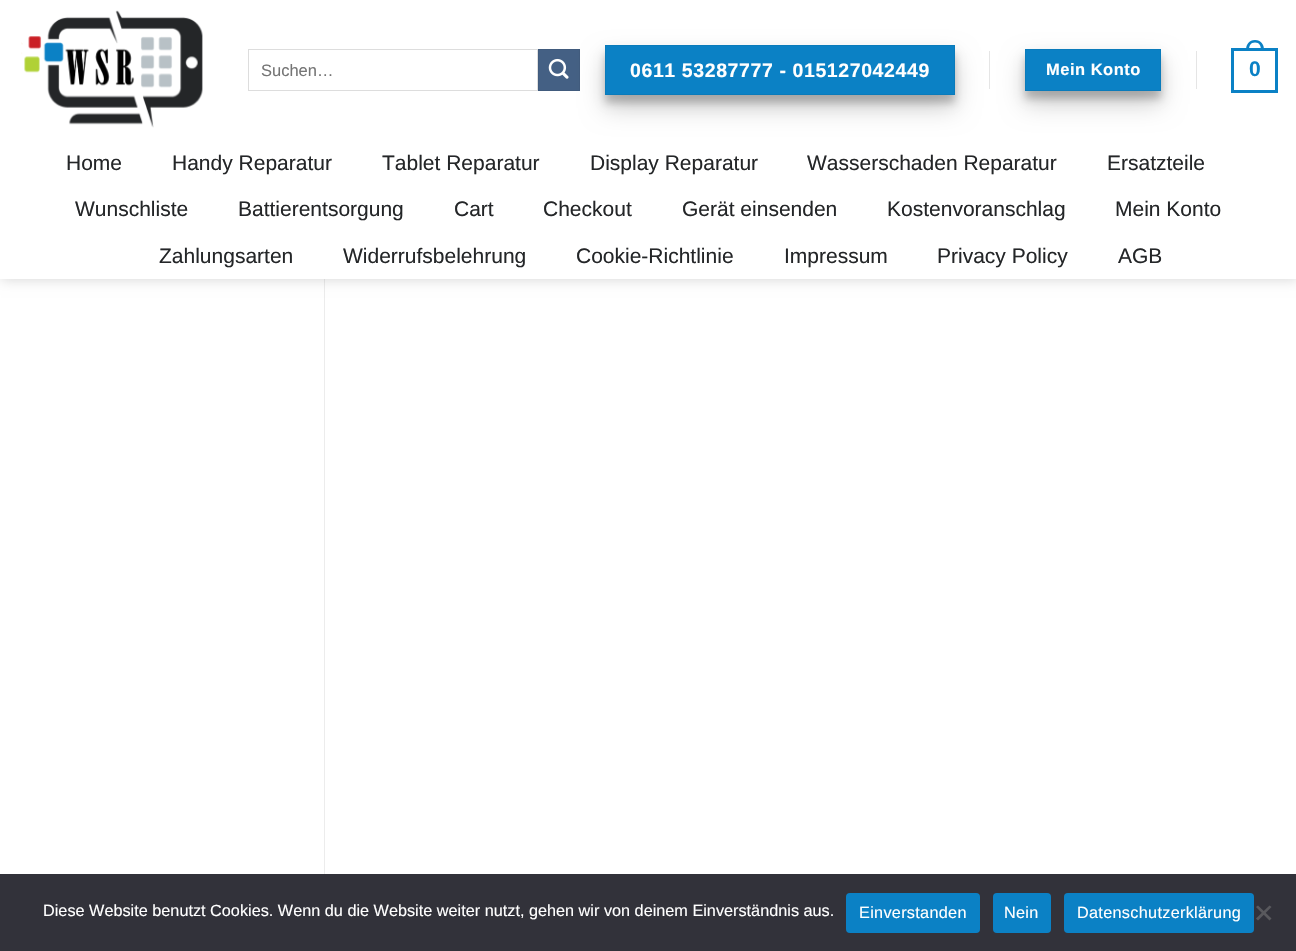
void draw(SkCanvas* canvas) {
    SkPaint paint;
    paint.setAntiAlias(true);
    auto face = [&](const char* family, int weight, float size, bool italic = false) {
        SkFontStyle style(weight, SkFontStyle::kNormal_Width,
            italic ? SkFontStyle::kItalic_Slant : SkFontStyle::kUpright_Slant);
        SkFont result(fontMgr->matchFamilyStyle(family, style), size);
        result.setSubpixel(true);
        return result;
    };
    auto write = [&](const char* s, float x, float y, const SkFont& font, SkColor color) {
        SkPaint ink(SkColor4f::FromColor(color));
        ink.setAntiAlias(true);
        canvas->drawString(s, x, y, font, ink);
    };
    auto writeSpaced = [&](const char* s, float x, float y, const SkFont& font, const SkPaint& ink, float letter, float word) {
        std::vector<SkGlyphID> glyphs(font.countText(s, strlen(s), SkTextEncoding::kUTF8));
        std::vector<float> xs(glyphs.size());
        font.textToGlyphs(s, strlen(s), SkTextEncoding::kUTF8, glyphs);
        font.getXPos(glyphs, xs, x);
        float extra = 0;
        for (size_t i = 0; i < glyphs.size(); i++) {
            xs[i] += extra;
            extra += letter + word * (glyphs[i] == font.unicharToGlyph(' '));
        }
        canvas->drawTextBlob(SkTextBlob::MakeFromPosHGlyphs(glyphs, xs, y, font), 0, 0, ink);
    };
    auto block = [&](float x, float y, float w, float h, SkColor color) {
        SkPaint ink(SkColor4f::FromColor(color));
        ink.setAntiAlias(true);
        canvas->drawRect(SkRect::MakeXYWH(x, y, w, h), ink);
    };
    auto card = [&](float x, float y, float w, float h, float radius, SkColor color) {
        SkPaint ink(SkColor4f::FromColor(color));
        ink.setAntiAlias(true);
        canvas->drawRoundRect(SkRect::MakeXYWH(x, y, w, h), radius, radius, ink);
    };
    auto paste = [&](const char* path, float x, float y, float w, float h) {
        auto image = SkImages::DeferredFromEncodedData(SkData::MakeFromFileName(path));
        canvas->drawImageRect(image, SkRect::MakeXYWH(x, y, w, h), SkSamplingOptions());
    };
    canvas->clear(SK_ColorWHITE);
    block(324, 279, 1, 595, SkColorSetRGB(236, 236, 236));
    paint.setColor(SkColorSetARGB(38, 0, 0, 0));
    paint.setMaskFilter(SkMaskFilter::MakeBlur(kNormal_SkBlurStyle, 6));
    canvas->drawRect(SkRect::MakeXYWH(1, 1, 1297, 279), paint);
    paint.setMaskFilter(nullptr);
    block(0, 0, 1296, 279, SK_ColorWHITE);
    paste("pic1.png", 21, 10, 182, 118);
    paint.setStyle(SkPaint::kStroke_Style);
    paint.setStrokeWidth(1);
    paint.setColor(SkColorSetRGB(221, 221, 221));
    canvas->drawRect(SkRect::MakeXYWH(248.5f, 49.5f, 289, 41), paint);
    auto kFont1 = face("Liberation Sans", 400, 16.5f);
    write("Suchen…", 261, 76, kFont1, SkColorSetRGB(117, 117, 117));
    paint.setStyle(SkPaint::kFill_Style);
    paint.setColor(SkColorSetRGB(68, 96, 132));
    canvas->drawRect(SkRect::MakeXYWH(538.5f, 49.5f, 41, 41), paint);
    paint.setStyle(SkPaint::kStroke_Style);
    paint.setColor(SkColorSetRGB(65, 91, 125));
    canvas->drawRect(SkRect::MakeXYWH(538.5f, 49.5f, 41, 41), paint);
    paste("pic2.png", 548, 58, 21, 21);
    paint.setStyle(SkPaint::kFill_Style);
    paint.setColor(SkColorSetARGB(56, 0, 0, 0));
    paint.setMaskFilter(SkMaskFilter::MakeBlur(kNormal_SkBlurStyle, 4));
    canvas->drawRect(SkRect::MakeXYWH(605, 53, 350, 50), paint);
    paint.setMaskFilter(nullptr);
    paint.setColor(SkColorSetARGB(48, 0, 0, 0));
    paint.setMaskFilter(SkMaskFilter::MakeBlur(kNormal_SkBlurStyle, 12.5f));
    canvas->drawRect(SkRect::MakeXYWH(605, 58, 350, 50), paint);
    paint.setMaskFilter(nullptr);
    paint.setColor(SkColorSetRGB(11, 129, 197));
    canvas->drawRect(SkRect::MakeXYWH(605.5f, 45.5f, 349, 49), paint);
    paint.setStyle(SkPaint::kStroke_Style);
    paint.setColor(SkColorSetRGB(10, 123, 187));
    canvas->drawRect(SkRect::MakeXYWH(605.5f, 45.5f, 349, 49), paint);
    auto kFont2 = face("Liberation Sans", 700, 19.5f);
    paint.setStyle(SkPaint::kFill_Style);
    paint.setColor(SK_ColorWHITE);
    writeSpaced("0611 53287777 - 015127042449", 630, 77, kFont2, paint, 0.6f, 0);
    block(989, 51, 1, 38, SkColorSetRGB(229, 229, 229));
    paint.setColor(SkColorSetARGB(56, 0, 0, 0));
    paint.setMaskFilter(SkMaskFilter::MakeBlur(kNormal_SkBlurStyle, 4));
    canvas->drawRect(SkRect::MakeXYWH(1025, 56, 136, 43), paint);
    paint.setMaskFilter(nullptr);
    paint.setColor(SkColorSetARGB(48, 0, 0, 0));
    paint.setMaskFilter(SkMaskFilter::MakeBlur(kNormal_SkBlurStyle, 12.5f));
    canvas->drawRect(SkRect::MakeXYWH(1025, 61, 136, 43), paint);
    paint.setMaskFilter(nullptr);
    paint.setColor(SkColorSetRGB(11, 129, 197));
    canvas->drawRect(SkRect::MakeXYWH(1025.5f, 49.5f, 135, 41), paint);
    paint.setStyle(SkPaint::kStroke_Style);
    paint.setColor(SkColorSetRGB(10, 123, 187));
    canvas->drawRect(SkRect::MakeXYWH(1025.5f, 49.5f, 135, 41), paint);
    auto kFont3 = face("Liberation Sans", 700, 16.5f);
    paint.setStyle(SkPaint::kFill_Style);
    paint.setColor(SK_ColorWHITE);
    writeSpaced("Mein Konto", 1046, 75, kFont3, paint, 0.5f, 0);
    block(1196, 51, 1, 38, SkColorSetRGB(229, 229, 229));
    paint.setStyle(SkPaint::kStroke_Style);
    paint.setStrokeWidth(3);
    paint.setColor(SkColorSetRGB(11, 129, 197));
    canvas->drawRect(SkRect::MakeXYWH(1232.5f, 49.5f, 44, 42), paint);
    paint.setStyle(SkPaint::kFill_Style);
    canvas->drawPath(SkPathBuilder(SkPathFillType::kEvenOdd).moveTo(1255, 40).cubicTo(1261, 40, 1264, 44.5f, 1264, 50).lineTo(1246, 50).cubicTo(1246, 44.5f, 1249, 40, 1255, 40).close().moveTo(1255, 42.5f).cubicTo(1259.5f, 42.5f, 1261, 46, 1261, 50).lineTo(1249, 50).cubicTo(1249, 46, 1250.5f, 42.5f, 1255, 42.5f).close().detach(), paint);
    auto kFont4 = face("Liberation Sans", 700, 21);
    write("0", 1249, 76, kFont4, SkColorSetRGB(11, 129, 197));
    auto kFont5 = face("Liberation Sans", 400, 21);
    write("Home", 66, 170, kFont5, SkColorSetRGB(36, 38, 40));
    write("Handy Reparatur", 172, 170, kFont5, SkColorSetRGB(36, 38, 40));
    write("Tablet Reparatur", 382, 170, kFont5, SkColorSetRGB(36, 38, 40));
    write("Display Reparatur", 590, 170, kFont5, SkColorSetRGB(36, 38, 40));
    write("Wasserschaden Reparatur", 807, 170, kFont5, SkColorSetRGB(36, 38, 40));
    write("Ersatzteile", 1107, 170, kFont5, SkColorSetRGB(36, 38, 40));
    write("Wunschliste", 75, 216, kFont5, SkColorSetRGB(36, 38, 40));
    write("Battierentsorgung", 238, 216, kFont5, SkColorSetRGB(36, 38, 40));
    write("Cart", 454, 216, kFont5, SkColorSetRGB(36, 38, 40));
    write("Checkout", 543, 216, kFont5, SkColorSetRGB(36, 38, 40));
    write("Gerät einsenden", 682, 216, kFont5, SkColorSetRGB(36, 38, 40));
    write("Kostenvoranschlag", 887, 216, kFont5, SkColorSetRGB(36, 38, 40));
    write("Mein Konto", 1115, 216, kFont5, SkColorSetRGB(36, 38, 40));
    write("Zahlungsarten", 159, 263, kFont5, SkColorSetRGB(36, 38, 40));
    write("Widerrufsbelehrung", 343, 263, kFont5, SkColorSetRGB(36, 38, 40));
    write("Cookie-Richtlinie", 576, 263, kFont5, SkColorSetRGB(36, 38, 40));
    write("Impressum", 784, 263, kFont5, SkColorSetRGB(36, 38, 40));
    write("Privacy Policy", 937, 263, kFont5, SkColorSetRGB(36, 38, 40));
    write("AGB", 1118, 263, kFont5, SkColorSetRGB(36, 38, 40));
    block(0, 874, 1296, 77, SkColorSetRGB(50, 50, 58));
    auto kFont6 = face("Liberation Sans", 400, 16.25f);
    write("Diese Website benutzt Cookies. Wenn du die Website weiter nutzt, gehen wir von deinem Einverständnis aus.", 43, 916, kFont6, SK_ColorWHITE);
    card(846, 893, 134, 40, 4, SkColorSetRGB(11, 129, 197));
    paint.setColor(SK_ColorWHITE);
    writeSpaced("Einverstanden", 859, 918, kFont6, paint, 0.3f, 0);
    card(993, 893, 58, 40, 4, SkColorSetRGB(11, 129, 197));
    writeSpaced("Nein", 1004, 918, kFont6, paint, 0.3f, 0);
    card(1064, 893, 190, 40, 4, SkColorSetRGB(11, 129, 197));
    writeSpaced("Datenschutzerklärung", 1077, 918, kFont6, paint, 0.3f, 0);
    paint.setColor(SkColorSetRGB(89, 89, 93));
    canvas->drawPath(SkPathBuilder().moveTo(1269.5f, 905.5f).lineTo(1271.5f, 907).lineTo(1258, 920.5f).lineTo(1256, 918.5f).close().detach(), paint);
    canvas->drawPath(SkPathBuilder().moveTo(1256, 907).lineTo(1258, 905.5f).lineTo(1271.5f, 918.5f).lineTo(1269.5f, 920.5f).close().detach(), paint);
}
